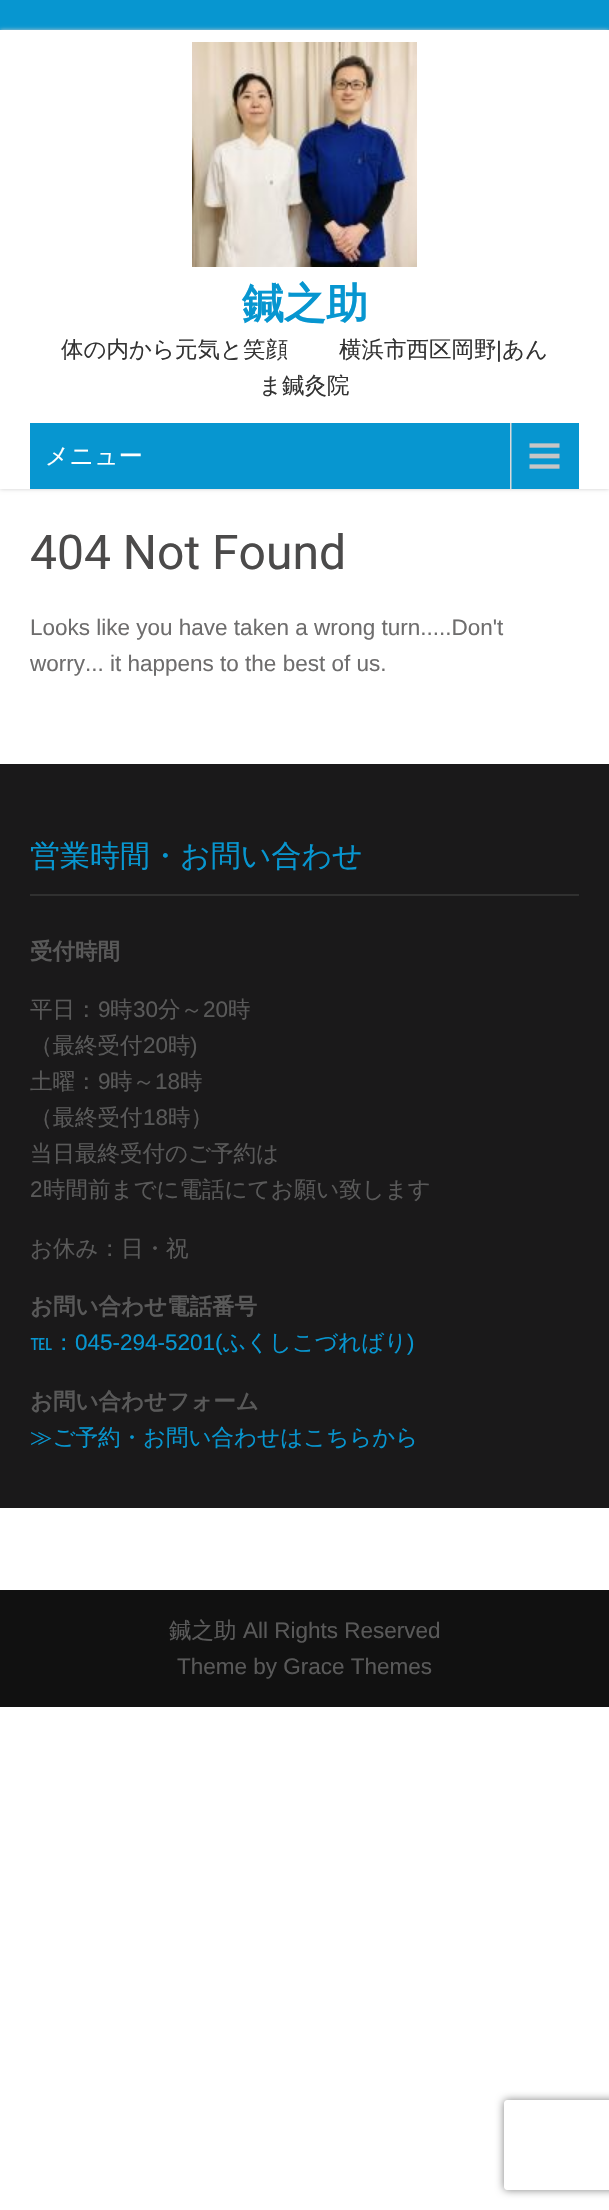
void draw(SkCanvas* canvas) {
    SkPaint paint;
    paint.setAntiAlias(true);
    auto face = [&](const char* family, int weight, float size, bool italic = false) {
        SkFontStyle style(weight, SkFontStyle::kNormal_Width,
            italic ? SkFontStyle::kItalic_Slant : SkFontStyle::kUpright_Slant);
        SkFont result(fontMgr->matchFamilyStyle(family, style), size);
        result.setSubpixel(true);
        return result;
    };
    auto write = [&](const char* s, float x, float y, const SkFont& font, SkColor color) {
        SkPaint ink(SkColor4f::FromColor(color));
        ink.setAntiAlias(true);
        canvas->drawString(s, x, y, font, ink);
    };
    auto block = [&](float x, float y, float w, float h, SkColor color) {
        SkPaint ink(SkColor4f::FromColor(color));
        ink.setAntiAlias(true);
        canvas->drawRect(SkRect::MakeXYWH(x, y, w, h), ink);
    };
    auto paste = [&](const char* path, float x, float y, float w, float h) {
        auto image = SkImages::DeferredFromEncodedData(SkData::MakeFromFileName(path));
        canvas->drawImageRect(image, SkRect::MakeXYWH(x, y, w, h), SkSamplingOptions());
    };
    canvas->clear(SK_ColorWHITE);
    block(0, 0, 609, 30, SkColorSetRGB(7, 150, 208));
    canvas->save();
    canvas->clipPath(SkPathBuilder(SkPathFillType::kEvenOdd).moveTo(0, 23).lineTo(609, 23).lineTo(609, 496).lineTo(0, 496).close().moveTo(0, 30).lineTo(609, 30).lineTo(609, 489).lineTo(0, 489).close().detach(), true);
    paint.setColor(SkColorSetRGB(204, 204, 204));
    paint.setMaskFilter(SkMaskFilter::MakeBlur(kNormal_SkBlurStyle, 2));
    canvas->drawRect(SkRect::MakeXYWH(0, 30, 609, 459), paint);
    paint.setMaskFilter(nullptr);
    canvas->restore();
    paste("pic1.png", 192, 42, 225, 225);
    auto kFont1 = face("WenQuanYi Zen Hei", 700, 42);
    write("鍼之助", 242, 318, kFont1, SkColorSetRGB(7, 150, 208));
    auto kFont2 = face("WenQuanYi Zen Hei", 500, 22.5f);
    write("体の内から元気と笑顔", 61, 357, kFont2, SkColorSetRGB(51, 51, 51));
    write("横浜市西区岡野", 339, 357, kFont2, SkColorSetRGB(51, 51, 51));
    auto kFont3 = face("Liberation Sans", 400, 22.5f);
    write("|", 496, 357, kFont3, SkColorSetRGB(51, 51, 51));
    write("あん", 502, 357, kFont2, SkColorSetRGB(51, 51, 51));
    write("ま鍼灸院", 259, 393, kFont2, SkColorSetRGB(51, 51, 51));
    block(30, 423, 549, 66, SkColorSetRGB(7, 150, 208));
    paste("pic2.png", 510, 423, 50, 66);
    auto kFont4 = face("WenQuanYi Zen Hei", 500, 24);
    write("メニュー", 45, 464, kFont4, SK_ColorWHITE);
    auto kFont5 = face("Roboto", 400, 48);
    write("404 Not Found", 30, 569, kFont5, SkColorSetRGB(75, 74, 74));
    write("Looks like you have taken a wrong turn.....Don't", 30, 635, kFont3, SkColorSetRGB(110, 109, 109));
    write("worry... it happens to the best of us.", 30, 671, kFont3, SkColorSetRGB(110, 109, 109));
    block(0, 764, 609, 744, SkColorSetRGB(26, 25, 26));
    block(30, 894, 549, 2, SkColorSetRGB(48, 48, 48));
    auto kFont6 = face("WenQuanYi Zen Hei", 500, 30);
    write("営業時間・お問い合わせ", 30, 866, kFont6, SkColorSetRGB(7, 150, 208));
    auto kFont7 = face("WenQuanYi Zen Hei", 700, 22.5f);
    write("受付時間", 30, 959, kFont7, SkColorSetRGB(89, 89, 89));
    write("平日：", 30, 1017, kFont2, SkColorSetRGB(89, 89, 89));
    write("9", 98, 1017, kFont3, SkColorSetRGB(89, 89, 89));
    write("時", 110, 1017, kFont2, SkColorSetRGB(89, 89, 89));
    write("30", 133, 1017, kFont3, SkColorSetRGB(89, 89, 89));
    write("分～", 158, 1017, kFont2, SkColorSetRGB(89, 89, 89));
    write("20", 203, 1017, kFont3, SkColorSetRGB(89, 89, 89));
    write("時", 228, 1017, kFont2, SkColorSetRGB(89, 89, 89));
    write("（最終受付", 30, 1053, kFont2, SkColorSetRGB(89, 89, 89));
    write("20", 143, 1053, kFont3, SkColorSetRGB(89, 89, 89));
    write("時", 168, 1053, kFont2, SkColorSetRGB(89, 89, 89));
    write(")", 190, 1053, kFont3, SkColorSetRGB(89, 89, 89));
    write("土曜：", 30, 1089, kFont2, SkColorSetRGB(89, 89, 89));
    write("9", 98, 1089, kFont3, SkColorSetRGB(89, 89, 89));
    write("時～", 110, 1089, kFont2, SkColorSetRGB(89, 89, 89));
    write("18", 155, 1089, kFont3, SkColorSetRGB(89, 89, 89));
    write("時", 180, 1089, kFont2, SkColorSetRGB(89, 89, 89));
    write("（最終受付", 30, 1125, kFont2, SkColorSetRGB(89, 89, 89));
    write("18", 143, 1125, kFont3, SkColorSetRGB(89, 89, 89));
    write("時）", 168, 1125, kFont2, SkColorSetRGB(89, 89, 89));
    write("当日最終受付のご予約は", 30, 1161, kFont2, SkColorSetRGB(89, 89, 89));
    write("2", 30, 1197, kFont3, SkColorSetRGB(89, 89, 89));
    write("時間前までに電話にてお願い致します", 43, 1197, kFont2, SkColorSetRGB(89, 89, 89));
    write("お休み：日・祝", 30, 1256, kFont2, SkColorSetRGB(89, 89, 89));
    write("お問い合わせ電話番号", 30, 1314, kFont7, SkColorSetRGB(89, 89, 89));
    write("℡：", 30, 1350, kFont2, SkColorSetRGB(7, 150, 208));
    write("045-294-5201(", 75, 1350, kFont3, SkColorSetRGB(7, 150, 208));
    write("ふくしこづればり", 223, 1350, kFont2, SkColorSetRGB(7, 150, 208));
    write(")", 407, 1350, kFont3, SkColorSetRGB(7, 150, 208));
    write("お問い合わせフォーム", 30, 1409, kFont7, SkColorSetRGB(89, 89, 89));
    write("≫ご予約・お問い合わせはこちらから", 30, 1445, kFont2, SkColorSetRGB(7, 150, 208));
    block(0, 1590, 609, 117, SkColorSetRGB(17, 17, 17));
    write("鍼之助", 169, 1638, kFont2, SkColorSetRGB(89, 89, 89));
    write("All Rights Reserved", 243, 1638, kFont3, SkColorSetRGB(89, 89, 89));
    write("Theme by Grace Themes", 177, 1674, kFont3, SkColorSetRGB(89, 89, 89));
    canvas->save();
    canvas->clipPath(SkPathBuilder(SkPathFillType::kEvenOdd).moveTo(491, 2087).lineTo(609, 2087).lineTo(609, 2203).lineTo(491, 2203).close().moveTo(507, 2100).lineTo(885, 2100).cubicTo(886.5f, 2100, 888, 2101.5f, 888, 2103).lineTo(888, 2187).cubicTo(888, 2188.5f, 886.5f, 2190, 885, 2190).lineTo(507, 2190).cubicTo(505.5f, 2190, 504, 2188.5f, 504, 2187).lineTo(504, 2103).cubicTo(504, 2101.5f, 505.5f, 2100, 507, 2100).close().detach(), true);
    paint.setColor(SkColorSetRGB(128, 128, 128));
    paint.setMaskFilter(SkMaskFilter::MakeBlur(kNormal_SkBlurStyle, 4));
    canvas->drawRoundRect(SkRect::MakeXYWH(504, 2100, 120, 90), 3, 3, paint);
    paint.setMaskFilter(nullptr);
    canvas->restore();
}
